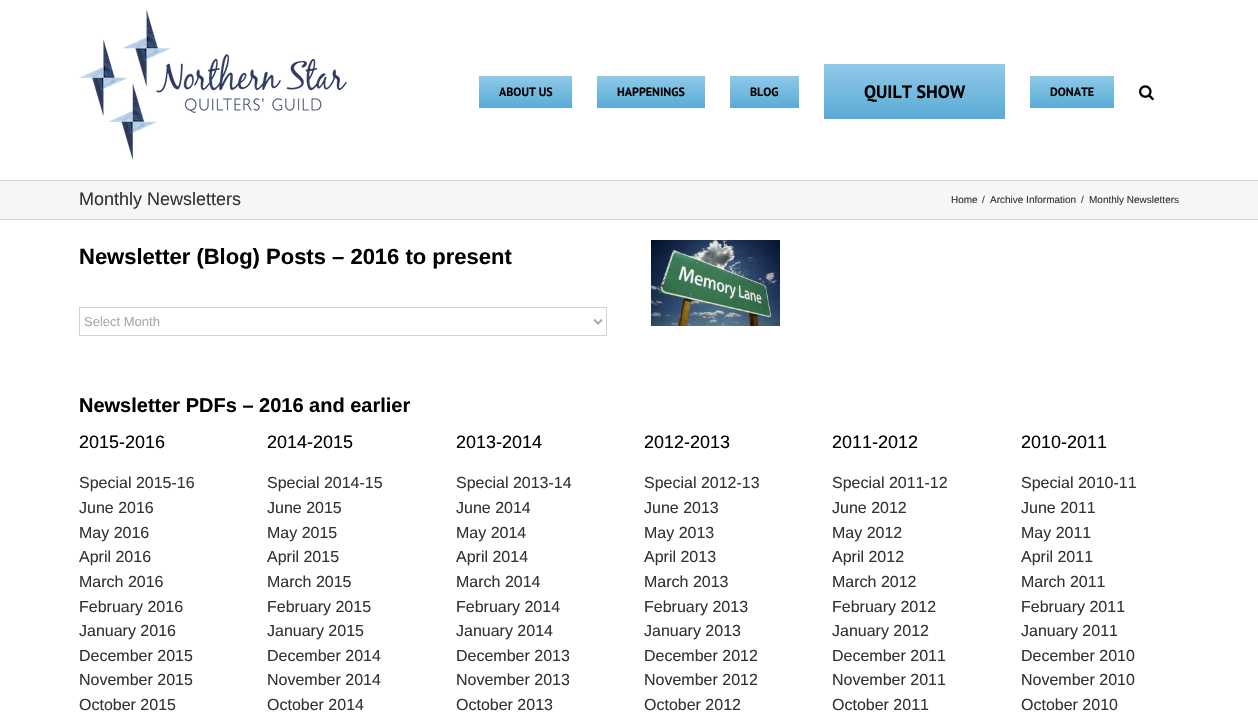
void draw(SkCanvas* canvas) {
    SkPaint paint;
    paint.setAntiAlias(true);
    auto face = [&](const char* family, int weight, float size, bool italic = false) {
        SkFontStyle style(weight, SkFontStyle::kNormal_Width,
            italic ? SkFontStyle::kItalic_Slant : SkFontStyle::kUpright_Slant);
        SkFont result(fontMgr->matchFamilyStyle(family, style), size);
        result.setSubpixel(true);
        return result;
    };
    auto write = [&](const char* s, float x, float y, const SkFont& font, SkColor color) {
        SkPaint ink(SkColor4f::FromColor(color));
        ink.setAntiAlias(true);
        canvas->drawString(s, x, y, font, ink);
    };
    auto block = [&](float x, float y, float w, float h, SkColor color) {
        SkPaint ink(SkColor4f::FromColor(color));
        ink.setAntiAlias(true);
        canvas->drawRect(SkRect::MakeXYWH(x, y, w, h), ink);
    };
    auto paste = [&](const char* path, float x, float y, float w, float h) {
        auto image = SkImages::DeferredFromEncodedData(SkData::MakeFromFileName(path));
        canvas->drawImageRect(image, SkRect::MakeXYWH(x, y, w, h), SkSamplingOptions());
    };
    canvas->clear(SK_ColorWHITE);
    paste("pic1.png", 79, 10, 268, 150);
    {
        const SkColor colors[] = {SkColorSetRGB(144, 201, 232), SkColorSetRGB(90, 171, 214)};
        const float stops[] = {0, 1};
        const SkPoint ends[] = {{526, 76}, {526, 108}};
        paint.setShader(SkGradientShader::MakeLinear(ends, colors, stops, 2, SkTileMode::kClamp));
        paint.setAlpha(255);
    }
    canvas->drawRect(SkRect::MakeXYWH(479, 76, 93, 32), paint);
    auto kFont1 = face("PT Sans", 700, 12);
    write("ABOUT US", 499, 96, kFont1, SK_ColorBLACK);
    {
        const SkColor colors[] = {SkColorSetRGB(144, 201, 232), SkColorSetRGB(90, 171, 214)};
        const float stops[] = {0, 1};
        const SkPoint ends[] = {{651, 76}, {651, 108}};
        paint.setShader(SkGradientShader::MakeLinear(ends, colors, stops, 2, SkTileMode::kClamp));
        paint.setAlpha(255);
    }
    canvas->drawRect(SkRect::MakeXYWH(597, 76, 108, 32), paint);
    write("HAPPENINGS", 617, 96, kFont1, SK_ColorBLACK);
    {
        const SkColor colors[] = {SkColorSetRGB(144, 201, 232), SkColorSetRGB(90, 171, 214)};
        const float stops[] = {0, 1};
        const SkPoint ends[] = {{765, 76}, {765, 108}};
        paint.setShader(SkGradientShader::MakeLinear(ends, colors, stops, 2, SkTileMode::kClamp));
        paint.setAlpha(255);
    }
    canvas->drawRect(SkRect::MakeXYWH(730, 76, 69, 32), paint);
    write("BLOG", 750, 96, kFont1, SK_ColorBLACK);
    {
        const SkColor colors[] = {SkColorSetRGB(144, 201, 232), SkColorSetRGB(90, 171, 214)};
        const float stops[] = {0, 1};
        const SkPoint ends[] = {{915, 64}, {915, 119}};
        paint.setShader(SkGradientShader::MakeLinear(ends, colors, stops, 2, SkTileMode::kClamp));
        paint.setAlpha(255);
    }
    canvas->drawRect(SkRect::MakeXYWH(824, 64, 181, 55), paint);
    auto kFont2 = face("PT Sans", 700, 18);
    write("QUILT SHOW", 864, 98, kFont2, SK_ColorBLACK);
    {
        const SkColor colors[] = {SkColorSetRGB(144, 201, 232), SkColorSetRGB(90, 171, 214)};
        const float stops[] = {0, 1};
        const SkPoint ends[] = {{1072, 76}, {1072, 108}};
        paint.setShader(SkGradientShader::MakeLinear(ends, colors, stops, 2, SkTileMode::kClamp));
        paint.setAlpha(255);
    }
    canvas->drawRect(SkRect::MakeXYWH(1030, 76, 84, 32), paint);
    write("DONATE", 1050, 96, kFont1, SK_ColorBLACK);
    paste("pic2.png", 1139, 85, 15, 16);
    block(0, 181, 1258, 38, SkColorSetRGB(246, 246, 246));
    block(0, 180, 1258, 1, SkColorSetRGB(210, 211, 212));
    block(0, 219, 1258, 1, SkColorSetRGB(210, 211, 212));
    auto kFont3 = face("Liberation Sans", 400, 18);
    write("Monthly Newsletters", 79, 205, kFont3, SkColorSetRGB(51, 51, 51));
    auto kFont4 = face("Liberation Sans", 400, 10);
    write("Home", 951, 203, kFont4, SkColorSetRGB(51, 51, 51));
    write("/", 982, 203, kFont4, SkColorSetRGB(51, 51, 51));
    write("Archive Information", 990, 203, kFont4, SkColorSetRGB(51, 51, 51));
    write("/", 1081, 203, kFont4, SkColorSetRGB(51, 51, 51));
    write("Monthly Newsletters", 1089, 203, kFont4, SkColorSetRGB(51, 51, 51));
    auto kFont5 = face("Liberation Sans", 700, 22);
    write("Newsletter (Blog) Posts – 2016 to present", 79, 264, kFont5, SK_ColorBLACK);
    paint.setStyle(SkPaint::kStroke_Style);
    paint.setStrokeWidth(1);
    paint.setShader(nullptr);
    paint.setColor(SkColorSetRGB(210, 210, 210));
    canvas->drawRect(SkRect::MakeXYWH(79.5f, 307.5f, 527, 28), paint);
    paint.setStrokeWidth(2);
    paint.setColor(SkColorSetRGB(170, 169, 169));
    canvas->drawPath(SkPathBuilder().moveTo(594, 319.5f).lineTo(598, 323.5f).lineTo(602, 319.5f).detach(), paint);
    auto kFont6 = face("Liberation Sans", 400, 13);
    write("Select Month", 84, 326, kFont6, SkColorSetRGB(170, 169, 169));
    paste("pic3.png", 651, 240, 129, 86);
    auto kFont7 = face("Liberation Sans", 700, 20);
    write("Newsletter PDFs – 2016 and earlier", 79, 412, kFont7, SK_ColorBLACK);
    write("2015-2016", 79, 448, kFont3, SK_ColorBLACK);
    auto kFont8 = face("Liberation Sans", 400, 16);
    write("Special 2015-16", 79, 488, kFont8, SkColorSetRGB(51, 51, 51));
    write("June 2016", 79, 513, kFont8, SkColorSetRGB(51, 51, 51));
    write("May 2016", 79, 538, kFont8, SkColorSetRGB(51, 51, 51));
    write("April 2016", 79, 562, kFont8, SkColorSetRGB(51, 51, 51));
    write("March 2016", 79, 587, kFont8, SkColorSetRGB(51, 51, 51));
    write("February 2016", 79, 612, kFont8, SkColorSetRGB(51, 51, 51));
    write("January 2016", 79, 636, kFont8, SkColorSetRGB(51, 51, 51));
    write("December 2015", 79, 661, kFont8, SkColorSetRGB(51, 51, 51));
    write("November 2015", 79, 685, kFont8, SkColorSetRGB(51, 51, 51));
    write("October 2015", 79, 710, kFont8, SkColorSetRGB(51, 51, 51));
    write("2014-2015", 267, 448, kFont3, SK_ColorBLACK);
    write("Special 2014-15", 267, 488, kFont8, SkColorSetRGB(51, 51, 51));
    write("June 2015", 267, 513, kFont8, SkColorSetRGB(51, 51, 51));
    write("May 2015", 267, 538, kFont8, SkColorSetRGB(51, 51, 51));
    write("April 2015", 267, 562, kFont8, SkColorSetRGB(51, 51, 51));
    write("March 2015", 267, 587, kFont8, SkColorSetRGB(51, 51, 51));
    write("February 2015", 267, 612, kFont8, SkColorSetRGB(51, 51, 51));
    write("January 2015", 267, 636, kFont8, SkColorSetRGB(51, 51, 51));
    write("December 2014", 267, 661, kFont8, SkColorSetRGB(51, 51, 51));
    write("November 2014", 267, 685, kFont8, SkColorSetRGB(51, 51, 51));
    write("October 2014", 267, 710, kFont8, SkColorSetRGB(51, 51, 51));
    write("2013-2014", 456, 448, kFont3, SK_ColorBLACK);
    write("Special 2013-14", 456, 488, kFont8, SkColorSetRGB(51, 51, 51));
    write("June 2014", 456, 513, kFont8, SkColorSetRGB(51, 51, 51));
    write("May 2014", 456, 538, kFont8, SkColorSetRGB(51, 51, 51));
    write("April 2014", 456, 562, kFont8, SkColorSetRGB(51, 51, 51));
    write("March 2014", 456, 587, kFont8, SkColorSetRGB(51, 51, 51));
    write("February 2014", 456, 612, kFont8, SkColorSetRGB(51, 51, 51));
    write("January 2014", 456, 636, kFont8, SkColorSetRGB(51, 51, 51));
    write("December 2013", 456, 661, kFont8, SkColorSetRGB(51, 51, 51));
    write("November 2013", 456, 685, kFont8, SkColorSetRGB(51, 51, 51));
    write("October 2013", 456, 710, kFont8, SkColorSetRGB(51, 51, 51));
    write("2012-2013", 644, 448, kFont3, SK_ColorBLACK);
    write("Special 2012-13", 644, 488, kFont8, SkColorSetRGB(51, 51, 51));
    write("June 2013", 644, 513, kFont8, SkColorSetRGB(51, 51, 51));
    write("May 2013", 644, 538, kFont8, SkColorSetRGB(51, 51, 51));
    write("April 2013", 644, 562, kFont8, SkColorSetRGB(51, 51, 51));
    write("March 2013", 644, 587, kFont8, SkColorSetRGB(51, 51, 51));
    write("February 2013", 644, 612, kFont8, SkColorSetRGB(51, 51, 51));
    write("January 2013", 644, 636, kFont8, SkColorSetRGB(51, 51, 51));
    write("December 2012", 644, 661, kFont8, SkColorSetRGB(51, 51, 51));
    write("November 2012", 644, 685, kFont8, SkColorSetRGB(51, 51, 51));
    write("October 2012", 644, 710, kFont8, SkColorSetRGB(51, 51, 51));
    write("2011-2012", 832, 448, kFont3, SK_ColorBLACK);
    write("Special 2011-12", 832, 488, kFont8, SkColorSetRGB(51, 51, 51));
    write("June 2012", 832, 513, kFont8, SkColorSetRGB(51, 51, 51));
    write("May 2012", 832, 538, kFont8, SkColorSetRGB(51, 51, 51));
    write("April 2012", 832, 562, kFont8, SkColorSetRGB(51, 51, 51));
    write("March 2012", 832, 587, kFont8, SkColorSetRGB(51, 51, 51));
    write("February 2012", 832, 612, kFont8, SkColorSetRGB(51, 51, 51));
    write("January 2012", 832, 636, kFont8, SkColorSetRGB(51, 51, 51));
    write("December 2011", 832, 661, kFont8, SkColorSetRGB(51, 51, 51));
    write("November 2011", 832, 685, kFont8, SkColorSetRGB(51, 51, 51));
    write("October 2011", 832, 710, kFont8, SkColorSetRGB(51, 51, 51));
    write("2010-2011", 1021, 448, kFont3, SK_ColorBLACK);
    write("Special 2010-11", 1021, 488, kFont8, SkColorSetRGB(51, 51, 51));
    write("June 2011", 1021, 513, kFont8, SkColorSetRGB(51, 51, 51));
    write("May 2011", 1021, 538, kFont8, SkColorSetRGB(51, 51, 51));
    write("April 2011", 1021, 562, kFont8, SkColorSetRGB(51, 51, 51));
    write("March 2011", 1021, 587, kFont8, SkColorSetRGB(51, 51, 51));
    write("February 2011", 1021, 612, kFont8, SkColorSetRGB(51, 51, 51));
    write("January 2011", 1021, 636, kFont8, SkColorSetRGB(51, 51, 51));
    write("December 2010", 1021, 661, kFont8, SkColorSetRGB(51, 51, 51));
    write("November 2010", 1021, 685, kFont8, SkColorSetRGB(51, 51, 51));
    write("October 2010", 1021, 710, kFont8, SkColorSetRGB(51, 51, 51));
}
